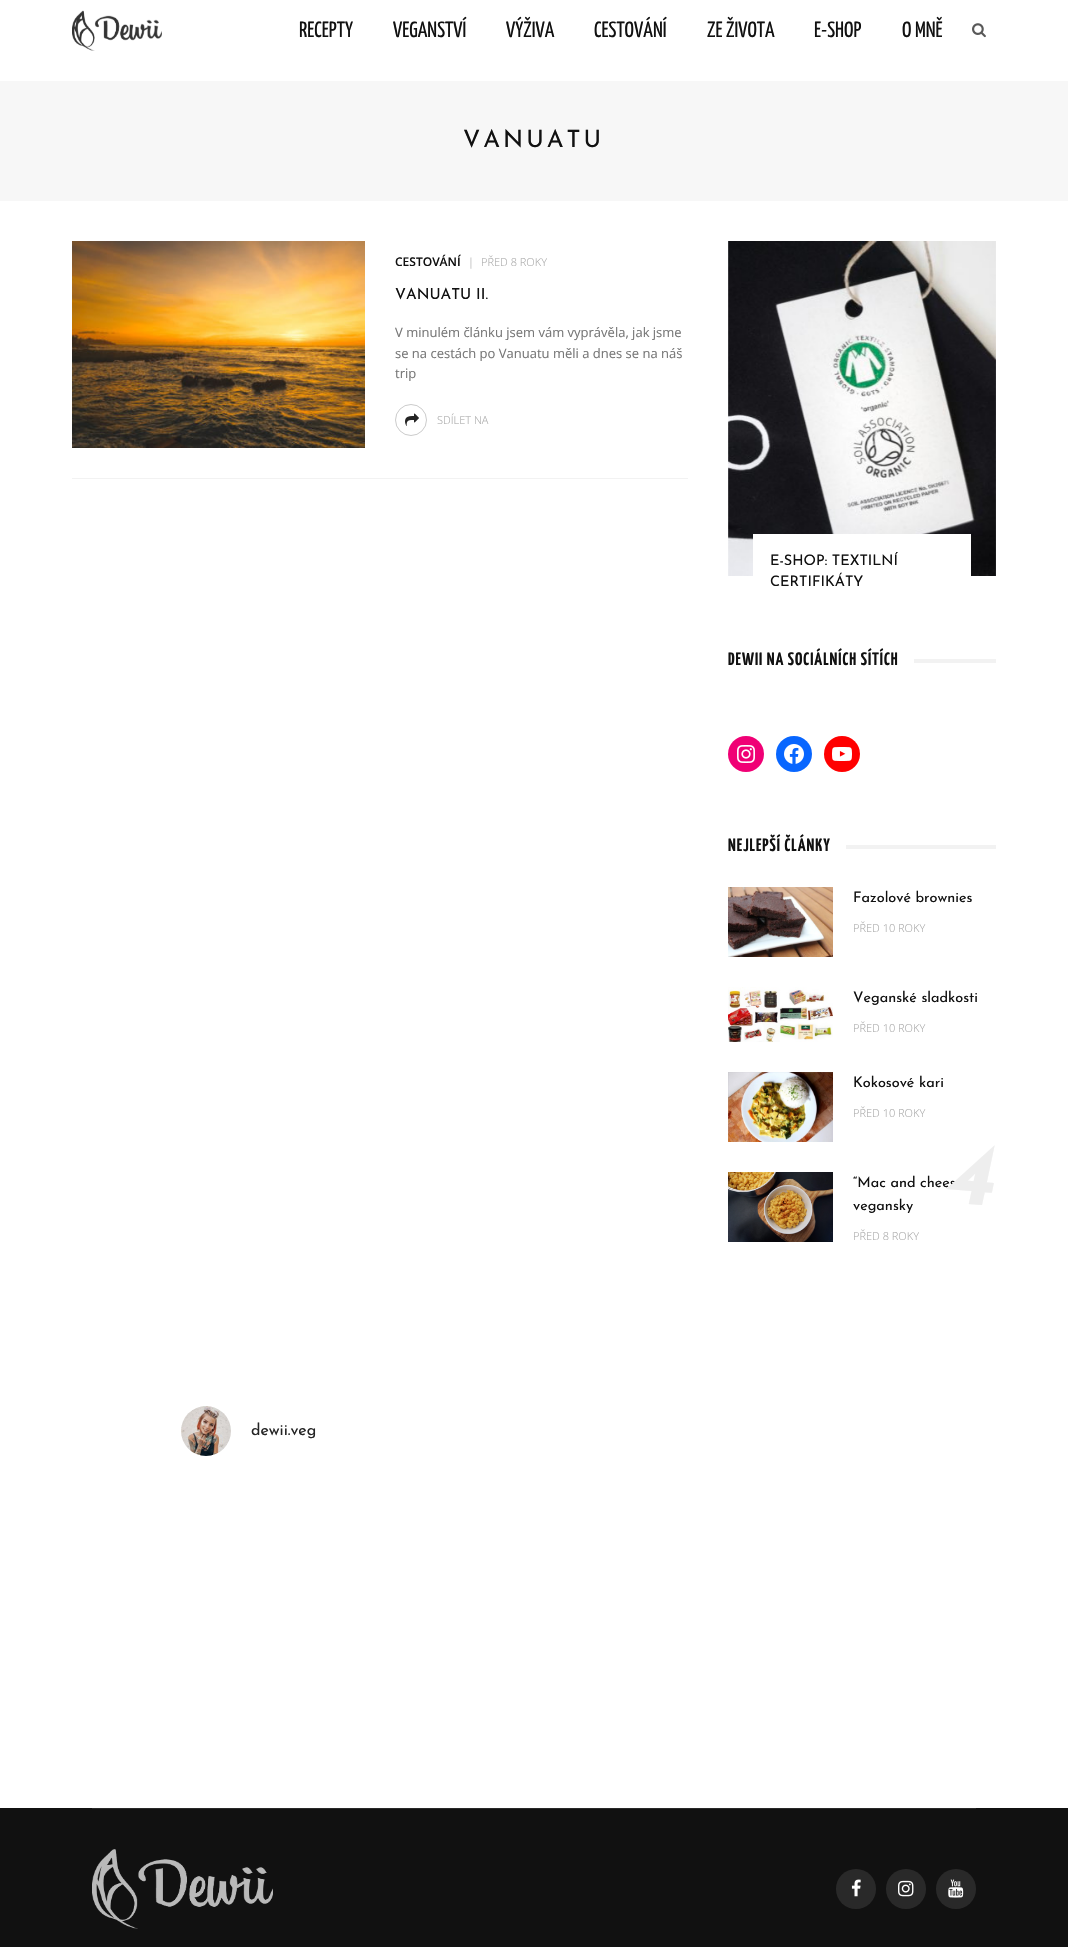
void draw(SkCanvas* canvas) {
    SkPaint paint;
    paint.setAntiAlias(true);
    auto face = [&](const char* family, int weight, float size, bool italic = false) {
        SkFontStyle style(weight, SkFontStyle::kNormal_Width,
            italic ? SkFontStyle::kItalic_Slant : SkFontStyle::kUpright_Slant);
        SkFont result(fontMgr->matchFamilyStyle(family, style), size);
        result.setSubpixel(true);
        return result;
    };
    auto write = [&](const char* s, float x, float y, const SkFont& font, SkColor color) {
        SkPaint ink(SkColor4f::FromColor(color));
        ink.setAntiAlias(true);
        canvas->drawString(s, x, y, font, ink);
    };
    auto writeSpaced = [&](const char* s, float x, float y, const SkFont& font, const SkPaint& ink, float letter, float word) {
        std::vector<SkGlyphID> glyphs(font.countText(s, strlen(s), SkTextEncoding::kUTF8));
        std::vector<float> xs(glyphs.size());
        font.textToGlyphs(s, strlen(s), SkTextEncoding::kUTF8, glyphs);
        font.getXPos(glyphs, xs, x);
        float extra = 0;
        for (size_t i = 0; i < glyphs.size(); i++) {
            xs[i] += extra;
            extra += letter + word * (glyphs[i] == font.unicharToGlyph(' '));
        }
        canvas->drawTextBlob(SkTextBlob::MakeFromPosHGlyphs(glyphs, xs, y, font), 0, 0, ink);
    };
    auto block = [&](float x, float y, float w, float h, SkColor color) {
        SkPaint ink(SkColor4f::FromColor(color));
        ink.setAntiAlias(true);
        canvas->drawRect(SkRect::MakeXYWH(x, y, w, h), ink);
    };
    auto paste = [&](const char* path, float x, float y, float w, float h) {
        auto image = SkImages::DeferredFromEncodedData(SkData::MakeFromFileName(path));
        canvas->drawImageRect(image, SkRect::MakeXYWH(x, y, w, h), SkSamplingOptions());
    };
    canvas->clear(SK_ColorWHITE);
    paste("pic1.png", 72, 10, 90, 41);
    auto kFont1 = face("Yanone Kaffeesatz", 400, 22);
    write("RECEPTY", 299, 37, kFont1, SkColorSetRGB(17, 17, 17));
    write("VEGANSTVÍ", 393, 37, kFont1, SkColorSetRGB(17, 17, 17));
    write("VÝŽIVA", 506, 37, kFont1, SkColorSetRGB(17, 17, 17));
    write("CESTOVÁNÍ", 594, 37, kFont1, SkColorSetRGB(17, 17, 17));
    write("ZE ŽIVOTA", 707, 37, kFont1, SkColorSetRGB(17, 17, 17));
    write("E-SHOP", 814, 37, kFont1, SkColorSetRGB(17, 17, 17));
    write("O MNĚ", 902, 37, kFont1, SkColorSetRGB(17, 17, 17));
    paste("pic2.png", 972, 23, 14, 15);
    block(0, 81, 1068, 120, SkColorSetRGB(247, 247, 247));
    auto kFont2 = face("Josefin Sans", 400, 24);
    paint.setColor(SkColorSetRGB(17, 17, 17));
    writeSpaced("VANUATU", 463, 147, kFont2, paint, 3, 0);
    block(72, 478, 616, 1, SkColorSetRGB(242, 242, 242));
    paste("pic3.png", 72, 241, 293, 207);
    auto kFont3 = face("Open Sans", 600, 12);
    write("CESTOVÁNÍ", 395, 266, kFont3, SkColorSetRGB(17, 17, 17));
    auto kFont4 = face("Open Sans", 300, 11);
    write("|", 468, 266, kFont4, SkColorSetRGB(170, 170, 170));
    write("PŘED 8 ROKY", 481, 266, kFont4, SkColorSetRGB(170, 170, 170));
    auto kFont5 = face("Josefin Sans", 400, 15.25f);
    write("VANUATU II.", 395, 299, kFont5, SkColorSetRGB(17, 17, 17));
    auto kFont6 = face("Open Sans", 400, 13);
    write("V minulém článku jsem vám vyprávěla, jak jsme", 395, 337, kFont6, SkColorSetRGB(119, 119, 119));
    write("se na cestách po Vanuatu měli a dnes se na náš", 395, 358, kFont6, SkColorSetRGB(119, 119, 119));
    write("trip", 395, 378, kFont6, SkColorSetRGB(119, 119, 119));
    paint.setStyle(SkPaint::kStroke_Style);
    paint.setStrokeWidth(1);
    paint.setColor(SkColorSetRGB(203, 203, 203));
    canvas->drawCircle(411, 420, 15.5f, paint);
    paste("pic4.png", 405, 413, 14, 13);
    write("SDÍLET NA", 437, 424, kFont4, SkColorSetRGB(170, 170, 170));
    paste("pic5.png", 728, 241, 268, 335);
    block(753, 534, 218, 42, SK_ColorWHITE);
    auto kFont7 = face("Josefin Sans", 400, 14.5f);
    write("E-SHOP: TEXTILNÍ", 770, 565, kFont7, SkColorSetRGB(17, 17, 17));
    write("CERTIFIKÁTY", 770, 586, kFont7, SkColorSetRGB(17, 17, 17));
    auto kFont8 = face("Yanone Kaffeesatz", 700, 18);
    paint.setStyle(SkPaint::kFill_Style);
    paint.setColor(SkColorSetRGB(17, 17, 17));
    writeSpaced("DEWII NA SOCIÁLNÍCH SÍTÍCH", 728, 665, kFont8, paint, 1, 0);
    block(914, 659, 82, 4, SkColorSetRGB(242, 242, 242));
    paint.setColor(SkColorSetRGB(240, 0, 117));
    canvas->drawCircle(746, 754, 18, paint);
    paste("pic6.png", 737, 745, 18, 18);
    paint.setColor(SkColorSetRGB(8, 102, 255));
    canvas->drawCircle(794, 754, 18, paint);
    paste("pic7.png", 784, 744, 20, 20);
    paint.setColor(SkColorSetRGB(255, 0, 0));
    canvas->drawCircle(842, 754, 18, paint);
    paste("pic8.png", 832, 747, 20, 14);
    paint.setColor(SkColorSetRGB(17, 17, 17));
    writeSpaced("NEJLEPŠÍ ČLÁNKY", 728, 851, kFont8, paint, 1, 0);
    block(846, 845, 150, 4, SkColorSetRGB(242, 242, 242));
    paste("pic9.png", 728, 887, 105, 70);
    write("Fazolové brownies", 853, 902, kFont7, SkColorSetRGB(17, 17, 17));
    write("PŘED 10 ROKY", 853, 932, kFont4, SkColorSetRGB(170, 170, 170));
    paste("pic10.png", 728, 987, 105, 55);
    write("Veganské sladkosti", 853, 1002, kFont7, SkColorSetRGB(17, 17, 17));
    write("PŘED 10 ROKY", 853, 1032, kFont4, SkColorSetRGB(170, 170, 170));
    paste("pic11.png", 728, 1072, 105, 70);
    write("Kokosové kari", 853, 1087, kFont7, SkColorSetRGB(17, 17, 17));
    write("PŘED 10 ROKY", 853, 1117, kFont4, SkColorSetRGB(170, 170, 170));
    paste("pic12.png", 728, 1172, 105, 70);
    write("“Mac and cheese”", 853, 1187, kFont7, SkColorSetRGB(17, 17, 17));
    write("vegansky", 853, 1210, kFont7, SkColorSetRGB(17, 17, 17));
    write("PŘED 8 ROKY", 853, 1240, kFont4, SkColorSetRGB(170, 170, 170));
    auto kFont9 = face("Josefin Sans", 700, 90, true);
    canvas->save();
    canvas->rotate(5, 947, 1202);
    write("4", 947, 1202, kFont9, SkColorSetRGB(238, 238, 238));
    canvas->restore();
    paste("pic13.png", 181, 1406, 50, 50);
    auto kFont10 = face("Josefin Sans", 400, 16);
    write("dewii.veg", 251, 1435, kFont10, SkColorSetRGB(36, 36, 36));
    block(0, 1808, 1068, 139, SkColorSetRGB(17, 17, 17));
    block(92, 1808, 884, 1, SkColorSetRGB(41, 41, 41));
    paste("pic14.png", 92, 1849, 181, 80);
    paint.setColor(SkColorSetRGB(41, 41, 41));
    canvas->drawCircle(856, 1889, 20, paint);
    paste("pic15.png", 851, 1879, 10, 18);
    canvas->drawCircle(906, 1889, 20, paint);
    paste("pic16.png", 898, 1880, 16, 17);
    canvas->drawCircle(956, 1889, 20, paint);
    paste("pic17.png", 948, 1879, 16, 19);
}
